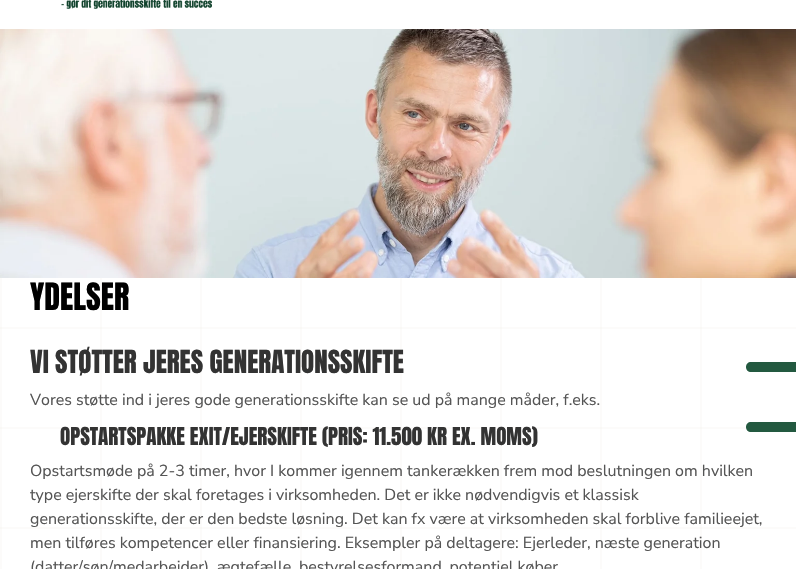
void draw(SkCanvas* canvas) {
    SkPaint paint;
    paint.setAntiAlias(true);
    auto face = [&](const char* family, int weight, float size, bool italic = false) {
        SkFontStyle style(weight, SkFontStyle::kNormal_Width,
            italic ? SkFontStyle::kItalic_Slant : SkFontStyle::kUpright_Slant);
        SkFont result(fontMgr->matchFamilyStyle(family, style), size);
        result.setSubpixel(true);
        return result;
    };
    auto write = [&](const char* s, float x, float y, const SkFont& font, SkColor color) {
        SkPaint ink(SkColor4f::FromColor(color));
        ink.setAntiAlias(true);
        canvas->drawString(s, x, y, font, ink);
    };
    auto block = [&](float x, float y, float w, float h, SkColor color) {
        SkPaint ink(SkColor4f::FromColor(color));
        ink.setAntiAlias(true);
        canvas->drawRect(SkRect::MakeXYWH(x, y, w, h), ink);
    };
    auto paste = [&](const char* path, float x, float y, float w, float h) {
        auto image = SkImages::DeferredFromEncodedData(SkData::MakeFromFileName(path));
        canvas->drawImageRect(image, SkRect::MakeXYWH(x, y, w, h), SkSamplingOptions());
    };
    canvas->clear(SK_ColorWHITE);
    block(0, 527, 796, 2, SkColorSetRGB(252, 251, 250));
    block(0, 427, 747, 2, SkColorSetRGB(252, 251, 250));
    block(0, 327, 796, 2, SkColorSetRGB(252, 251, 250));
    block(0, 278, 2, 291, SkColorSetRGB(252, 251, 250));
    block(0, 527, 2, 2, SkColorSetRGB(249, 248, 245));
    block(0, 427, 2, 2, SkColorSetRGB(249, 248, 245));
    block(0, 327, 2, 2, SkColorSetRGB(249, 248, 245));
    block(100, 278, 2, 291, SkColorSetRGB(252, 251, 250));
    block(100, 527, 2, 2, SkColorSetRGB(249, 248, 245));
    block(100, 427, 2, 2, SkColorSetRGB(249, 248, 245));
    block(100, 327, 2, 2, SkColorSetRGB(249, 248, 245));
    block(200, 278, 2, 291, SkColorSetRGB(252, 251, 250));
    block(200, 527, 2, 2, SkColorSetRGB(249, 248, 245));
    block(200, 427, 2, 2, SkColorSetRGB(249, 248, 245));
    block(200, 327, 2, 2, SkColorSetRGB(249, 248, 245));
    block(300, 278, 2, 291, SkColorSetRGB(252, 251, 250));
    block(300, 527, 2, 2, SkColorSetRGB(249, 248, 245));
    block(300, 427, 2, 2, SkColorSetRGB(249, 248, 245));
    block(300, 327, 2, 2, SkColorSetRGB(249, 248, 245));
    block(400, 278, 2, 291, SkColorSetRGB(252, 251, 250));
    block(400, 527, 2, 2, SkColorSetRGB(249, 248, 245));
    block(400, 427, 2, 2, SkColorSetRGB(249, 248, 245));
    block(400, 327, 2, 2, SkColorSetRGB(249, 248, 245));
    block(500, 278, 2, 291, SkColorSetRGB(252, 251, 250));
    block(500, 527, 2, 2, SkColorSetRGB(249, 248, 245));
    block(500, 427, 2, 2, SkColorSetRGB(249, 248, 245));
    block(500, 327, 2, 2, SkColorSetRGB(249, 248, 245));
    block(600, 278, 2, 291, SkColorSetRGB(252, 251, 250));
    block(600, 527, 2, 2, SkColorSetRGB(249, 248, 245));
    block(600, 427, 2, 2, SkColorSetRGB(249, 248, 245));
    block(600, 327, 2, 2, SkColorSetRGB(249, 248, 245));
    block(700, 278, 2, 291, SkColorSetRGB(252, 251, 250));
    block(700, 527, 2, 2, SkColorSetRGB(249, 248, 245));
    block(700, 427, 2, 2, SkColorSetRGB(249, 248, 245));
    block(700, 327, 2, 2, SkColorSetRGB(249, 248, 245));
    paste("pic1.png", 61, 0, 151, 9);
    paste("pic2.png", 0, 29, 796, 249);
    auto kFont1 = face("Anton", 400, 32);
    write("YDELSER", 30, 310, kFont1, SK_ColorBLACK);
    auto kFont2 = face("Anton", 400, 27);
    write("VI STØTTER JERES GENERATIONSSKIFTE", 30, 373, kFont2, SkColorSetRGB(51, 51, 51));
    auto kFont3 = face("Nunito Sans", 400, 16);
    write("Vores støtte ind i jeres gode generationsskifte kan se ud på mange måder, f.eks.", 30, 405, kFont3, SkColorSetRGB(85, 85, 85));
    auto kFont4 = face("Anton", 400, 21);
    write("OPSTARTSPAKKE EXIT/EJERSKIFTE (PRIS: 11.500 KR EX. MOMS)", 60, 445, kFont4, SkColorSetRGB(51, 51, 51));
    write("Opstartsmøde på 2-3 timer, hvor I kommer igennem tankerækken frem mod beslutningen om hvilken", 30, 476, kFont3, SkColorSetRGB(85, 85, 85));
    write("type ejerskifte der skal foretages i virksomheden. Det er ikke nødvendigvis et klassisk", 30, 500, kFont3, SkColorSetRGB(85, 85, 85));
    write("generationsskifte, der er den bedste løsning. Det kan fx være at virksomheden skal forblive familieejet,", 30, 524, kFont3, SkColorSetRGB(85, 85, 85));
    write("men tilføres kompetencer eller finansiering. Eksempler på deltagere: Ejerleder, næste generation", 30, 548, kFont3, SkColorSetRGB(85, 85, 85));
    write("(datter/søn/medarbejder), ægtefælle, bestyrelsesformand, potentiel køber", 30, 572, kFont3, SkColorSetRGB(85, 85, 85));
    paint.setColor(SkColorSetRGB(35, 89, 64));
    canvas->drawPath(SkPathBuilder().moveTo(751, 362).lineTo(796, 362).lineTo(796, 372).lineTo(751, 372).cubicTo(748, 372, 746, 370, 746, 367).cubicTo(746, 364, 748, 362, 751, 362).close().detach(), paint);
    paint.setColor(SkColorSetARGB(230, 255, 255, 255));
    canvas->drawPath(SkPathBuilder().moveTo(758.5f, 414).lineTo(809, 414).lineTo(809, 439).lineTo(758.5f, 439).cubicTo(751.5f, 439, 746, 433.5f, 746, 426.5f).cubicTo(746, 419.5f, 751.5f, 414, 758.5f, 414).close().detach(), paint);
    paint.setColor(SkColorSetRGB(35, 89, 64));
    canvas->drawPath(SkPathBuilder().moveTo(751, 422).lineTo(796, 422).lineTo(796, 432).lineTo(751, 432).cubicTo(748, 432, 746, 430, 746, 427).cubicTo(746, 424, 748, 422, 751, 422).close().detach(), paint);
}
